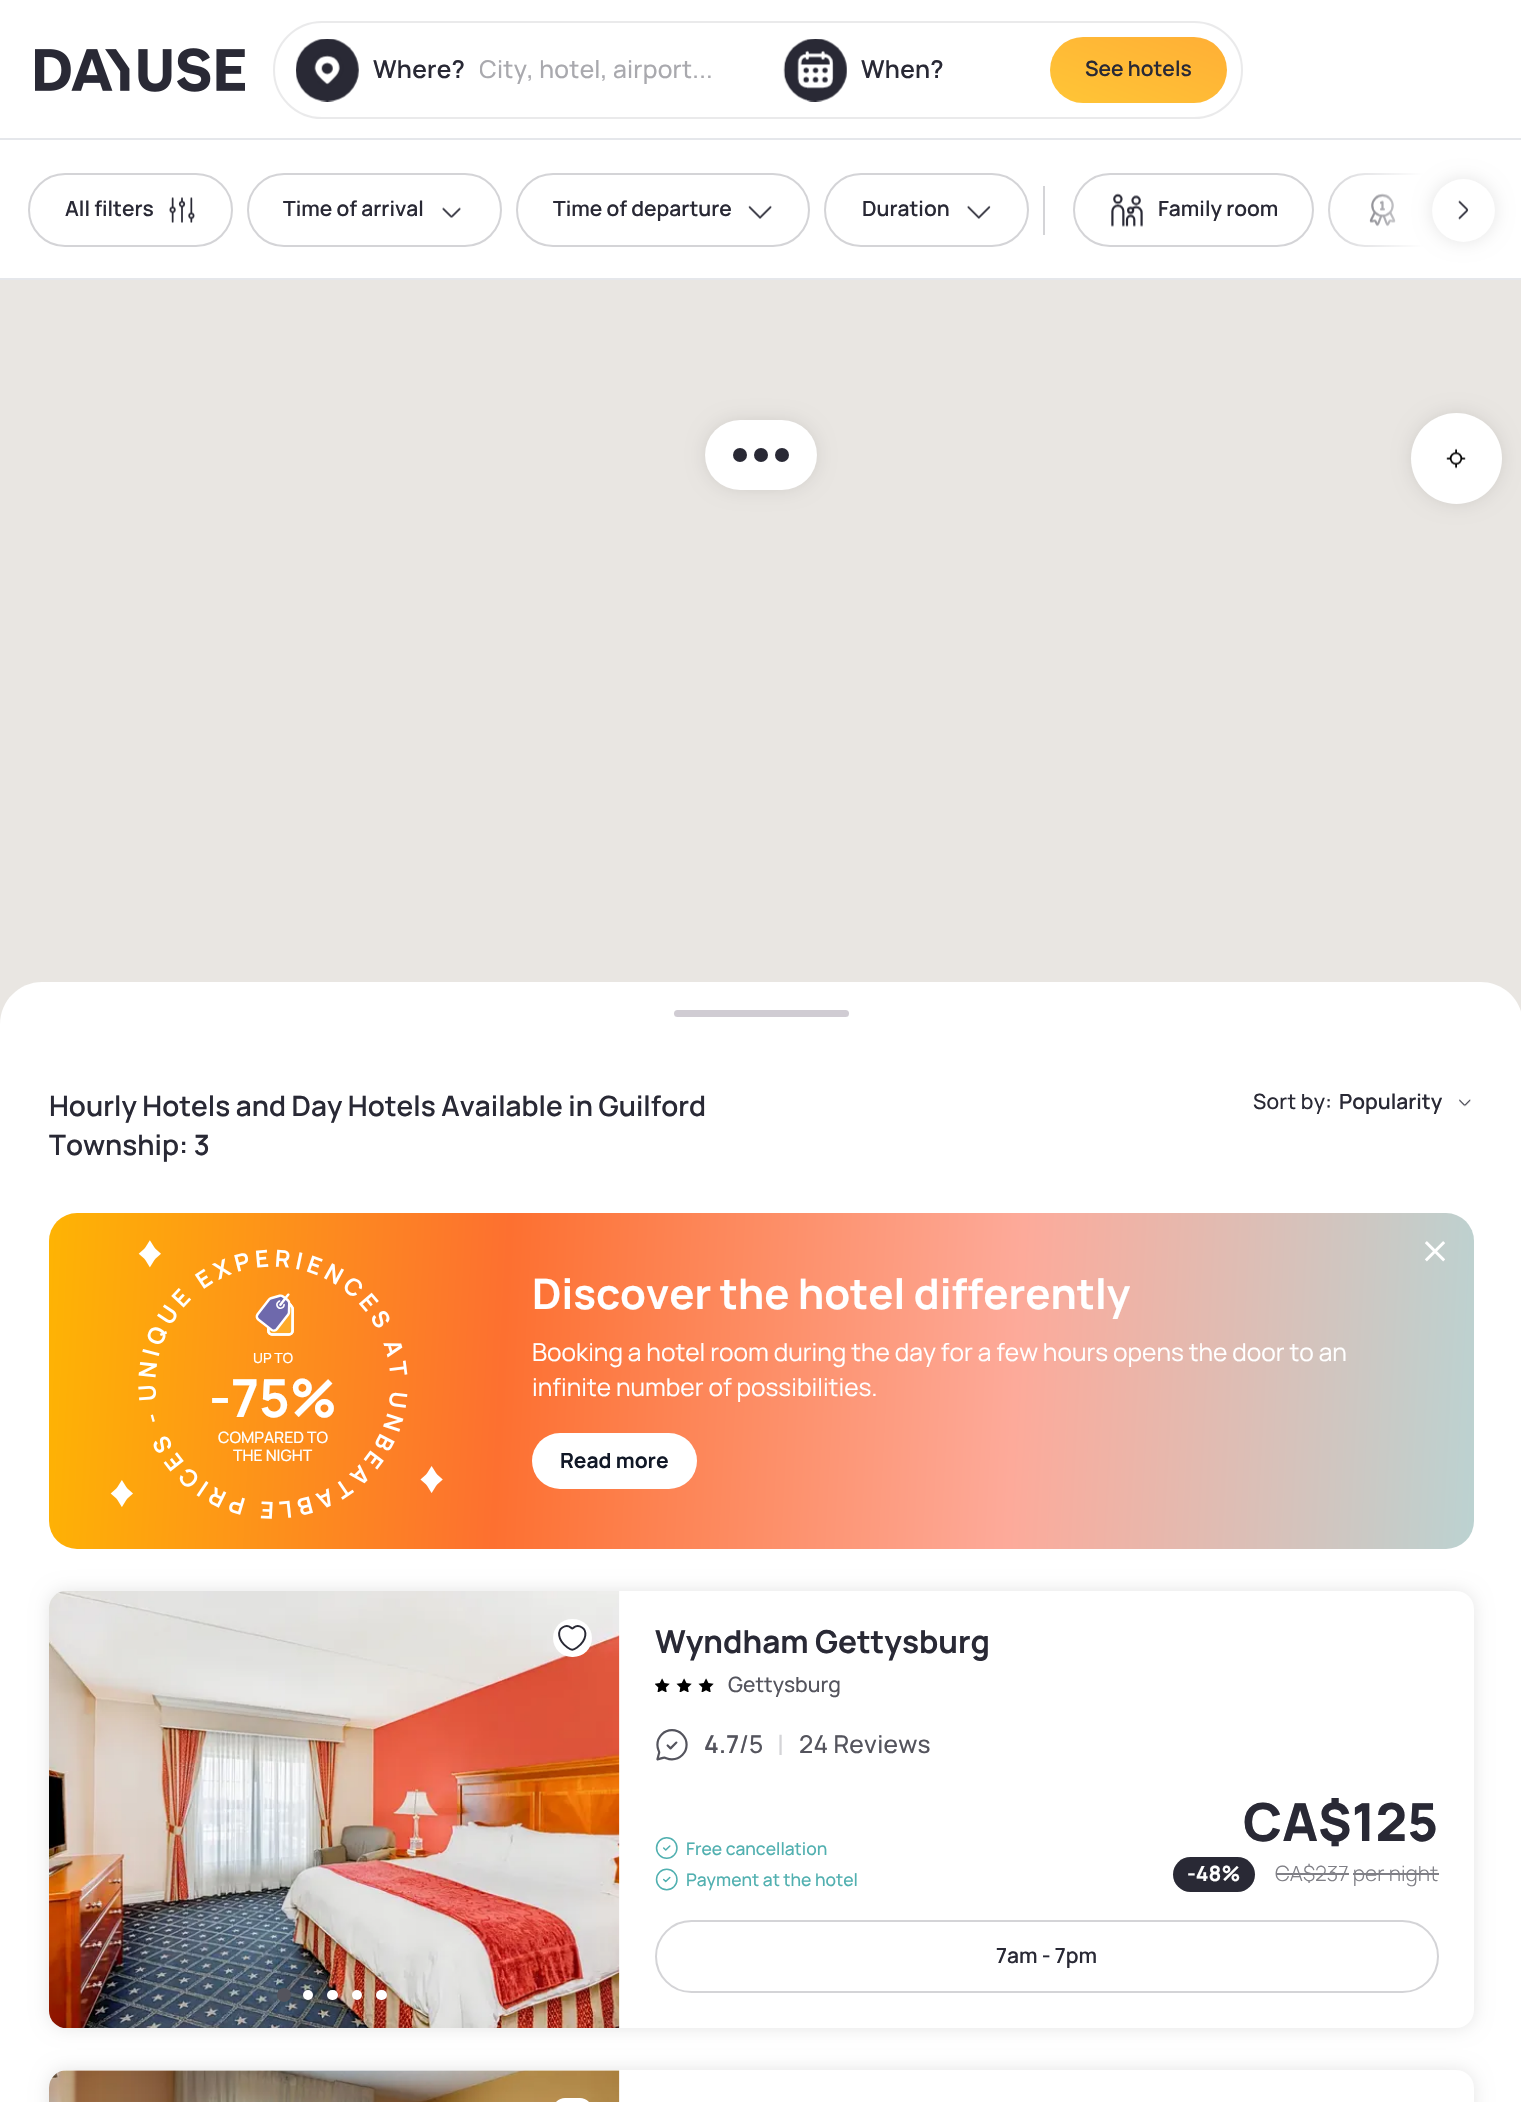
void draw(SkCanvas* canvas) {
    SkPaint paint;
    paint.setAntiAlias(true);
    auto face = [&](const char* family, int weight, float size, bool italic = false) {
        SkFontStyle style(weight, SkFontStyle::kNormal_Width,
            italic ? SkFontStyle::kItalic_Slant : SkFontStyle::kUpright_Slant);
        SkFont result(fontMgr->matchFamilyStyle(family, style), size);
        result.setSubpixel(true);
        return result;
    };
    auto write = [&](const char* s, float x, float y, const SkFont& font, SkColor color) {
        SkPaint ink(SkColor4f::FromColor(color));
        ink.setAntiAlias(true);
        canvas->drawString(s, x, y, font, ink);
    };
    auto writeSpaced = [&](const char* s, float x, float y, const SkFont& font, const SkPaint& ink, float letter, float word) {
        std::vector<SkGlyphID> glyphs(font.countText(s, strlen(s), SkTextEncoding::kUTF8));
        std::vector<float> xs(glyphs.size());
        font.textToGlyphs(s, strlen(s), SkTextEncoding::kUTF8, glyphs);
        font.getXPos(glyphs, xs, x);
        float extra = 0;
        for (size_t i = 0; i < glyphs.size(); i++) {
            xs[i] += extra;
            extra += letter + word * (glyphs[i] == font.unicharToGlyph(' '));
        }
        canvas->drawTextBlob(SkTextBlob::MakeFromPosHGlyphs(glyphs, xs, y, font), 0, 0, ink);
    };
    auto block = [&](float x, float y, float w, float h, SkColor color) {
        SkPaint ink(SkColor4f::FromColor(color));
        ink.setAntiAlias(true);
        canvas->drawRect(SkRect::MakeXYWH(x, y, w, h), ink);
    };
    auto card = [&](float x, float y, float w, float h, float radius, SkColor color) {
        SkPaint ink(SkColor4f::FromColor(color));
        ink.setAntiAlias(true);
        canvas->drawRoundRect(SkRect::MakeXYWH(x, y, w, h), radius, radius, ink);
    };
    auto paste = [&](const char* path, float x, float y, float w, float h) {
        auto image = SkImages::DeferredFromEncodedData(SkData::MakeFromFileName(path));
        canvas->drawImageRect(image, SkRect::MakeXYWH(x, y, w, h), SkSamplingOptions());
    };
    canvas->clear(SK_ColorWHITE);
    block(0, 138, 1521, 2, SkColorSetRGB(229, 231, 235));
    paste("pic1.png", 35, 48, 210, 44);
    paint.setStyle(SkPaint::kStroke_Style);
    paint.setStrokeWidth(2);
    paint.setColor(SkColorSetRGB(234, 234, 235));
    canvas->drawRoundRect(SkRect::MakeXYWH(274, 22, 968, 96), 48, 48, paint);
    paste("pic2.png", 296, 39, 63, 63);
    auto kFont1 = face("Manrope", 600, 24.5f);
    paint.setStyle(SkPaint::kFill_Style);
    paint.setColor(SkColorSetRGB(41, 41, 53));
    writeSpaced("Where?", 373, 78, kFont1, paint, 0.25f, 0);
    canvas->save();
    canvas->clipRect(SkRect::MakeXYWH(480, 51, 232, 38));
    auto kFont2 = face("Manrope", 500, 24.5f);
    paint.setColor(SkColorSetRGB(169, 169, 174));
    writeSpaced("City, hotel, airport...", 479, 78, kFont2, paint, 0.25f, 0);
    canvas->restore();
    paste("pic3.png", 783, 39, 64, 63);
    paint.setColor(SkColorSetRGB(41, 41, 53));
    writeSpaced("When?", 861, 78, kFont1, paint, 0.25f, 0);
    {
        const SkColor colors[] = {SkColorSetRGB(255, 175, 54), SkColorSetRGB(255, 197, 54)};
        const float stops[] = {0, 1};
        const SkPoint ends[] = {{1160, 12}, {1116, 128}};
        paint.setShader(SkGradientShader::MakeLinear(ends, colors, stops, 2, SkTileMode::kClamp));
        paint.setAlpha(255);
    }
    canvas->drawRoundRect(SkRect::MakeXYWH(1050, 37, 177, 66), 33, 33, paint);
    auto kFont3 = face("Manrope", 600, 21);
    write("See hotels", 1085, 76, kFont3, SkColorSetRGB(41, 41, 53));
    block(0, 278, 1521, 2, SkColorSetRGB(229, 231, 235));
    paint.setStyle(SkPaint::kStroke_Style);
    paint.setShader(nullptr);
    paint.setColor(SkColorSetRGB(212, 212, 215));
    canvas->drawRoundRect(SkRect::MakeXYWH(29, 174, 203, 72), 36, 36, paint);
    write("All filters", 65, 216, kFont3, SkColorSetRGB(41, 41, 53));
    paste("pic4.png", 169, 197, 26, 26);
    canvas->drawRoundRect(SkRect::MakeXYWH(248, 174, 253, 72), 36, 36, paint);
    write("Time of arrival", 283, 216, kFont3, SkColorSetRGB(41, 41, 53));
    paste("pic5.png", 442, 207, 19, 11);
    canvas->drawRoundRect(SkRect::MakeXYWH(517, 174, 292, 72), 36, 36, paint);
    write("Time of departure", 553, 216, kFont3, SkColorSetRGB(41, 41, 53));
    paste("pic6.png", 748, 205, 24, 14);
    canvas->drawRoundRect(SkRect::MakeXYWH(825, 174, 203, 72), 36, 36, paint);
    write("Duration", 862, 216, kFont3, SkColorSetRGB(41, 41, 53));
    paste("pic7.png", 967, 205, 24, 14);
    block(1043, 186, 2, 49, SkColorSetRGB(212, 212, 215));
    canvas->drawRoundRect(SkRect::MakeXYWH(1074, 174, 239, 72), 36, 36, paint);
    paste("pic8.png", 1111, 193, 32, 34);
    write("Family room", 1158, 216, kFont3, SkColorSetRGB(41, 41, 53));
    canvas->save();
    canvas->clipRect(SkRect::MakeXYWH(1059, 159, 436, 102));
    canvas->drawRoundRect(SkRect::MakeXYWH(1329, 174, 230, 72), 36, 36, paint);
    canvas->restore();
    paste("pic9.png", 1369, 193, 27, 34);
    paint.setStyle(SkPaint::kFill_Style);
    {
        const SkColor colors[] = {SK_ColorWHITE, SkColorSetARGB(0, 255, 255, 255)};
        const float stops[] = {0.4f, 1};
        const SkPoint ends[] = {{1495, 210}, {1320, 210}};
        paint.setShader(SkGradientShader::MakeLinear(ends, colors, stops, 2, SkTileMode::kClamp));
        paint.setAlpha(255);
    }
    canvas->drawRect(SkRect::MakeXYWH(1328, 173, 167, 74), paint);
    paint.setShader(nullptr);
    paint.setColor(SkColorSetARGB(26, 0, 0, 0));
    paint.setMaskFilter(SkMaskFilter::MakeBlur(kNormal_SkBlurStyle, 9));
    canvas->drawRoundRect(SkRect::MakeXYWH(1432, 179, 63, 63), 31.5f, 31.5f, paint);
    paint.setMaskFilter(nullptr);
    paint.setColor(SK_ColorWHITE);
    canvas->drawCircle(1463.5f, 210.5f, 31.5f, paint);
    paste("pic10.png", 1458, 200, 11, 20);
    block(0, 280, 1521, 744, SkColorSetRGB(233, 230, 226));
    paint.setColor(SkColorSetARGB(26, 0, 0, 0));
    paint.setMaskFilter(SkMaskFilter::MakeBlur(kNormal_SkBlurStyle, 9));
    canvas->drawRoundRect(SkRect::MakeXYWH(705, 420, 112, 70), 35, 35, paint);
    paint.setMaskFilter(nullptr);
    card(705, 420, 112, 70, 35, SK_ColorWHITE);
    paint.setColor(SkColorSetRGB(41, 41, 53));
    canvas->drawCircle(740, 455, 7, paint);
    canvas->drawCircle(761, 455, 7, paint);
    canvas->drawCircle(782, 455, 7, paint);
    paint.setColor(SkColorSetARGB(26, 0, 0, 0));
    paint.setMaskFilter(SkMaskFilter::MakeBlur(kNormal_SkBlurStyle, 9));
    canvas->drawRoundRect(SkRect::MakeXYWH(1411, 413, 91, 91), 45.5f, 45.5f, paint);
    paint.setMaskFilter(nullptr);
    paint.setColor(SK_ColorWHITE);
    canvas->drawCircle(1456.5f, 458.5f, 45.5f, paint);
    paste("pic11.png", 1446, 448, 20, 21);
    canvas->drawPath(SkPathBuilder().moveTo(42, 982).lineTo(1481, 982).cubicTo(1504, 982, 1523, 1001, 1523, 1024).lineTo(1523, 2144).lineTo(0, 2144).lineTo(0, 1024).cubicTo(0, 1001, 19, 982, 42, 982).close().detach(), paint);
    card(674, 1010, 175, 7, 3.5f, SkColorSetRGB(208, 204, 211));
    auto kFont4 = face("Manrope", 600, 28);
    write("Hourly Hotels and Day Hotels Available in Guilford", 49, 1116, kFont4, SkColorSetRGB(41, 41, 53));
    write("Township: 3", 49, 1155, kFont4, SkColorSetRGB(41, 41, 53));
    auto kFont5 = face("Manrope", 500, 21);
    paint.setColor(SkColorSetRGB(41, 41, 53));
    writeSpaced("Sort by:", 1253, 1109, kFont5, paint, 0.25f, 0);
    write("Popularity", 1339, 1109, kFont3, SkColorSetRGB(41, 41, 53));
    paste("pic12.png", 1459, 1099, 12, 8);
    {
        const SkColor colors[] = {SkColorSetRGB(254, 185, 0), SkColorSetRGB(253, 112, 48), SkColorSetRGB(253, 170, 154), SkColorSetRGB(183, 213, 213)};
        const float stops[] = {0, 0.33f, 0.67f, 1};
        const SkPoint ends[] = {{4.3f, 1341}, {1513, 1421}};
        paint.setShader(SkGradientShader::MakeLinear(ends, colors, stops, 4, SkTileMode::kClamp));
        paint.setAlpha(255);
    }
    canvas->drawRoundRect(SkRect::MakeXYWH(49, 1213, 1425, 336), 28, 28, paint);
    paste("pic17.png", 255, 1293, 39, 43);
    auto kFont6 = face("Manrope", 500, 14);
    write("UP TO", 253, 1363, kFont6, SK_ColorWHITE);
    auto kFont7 = face("Manrope", 700, 52.5f);
    write("-75%", 209, 1417, kFont7, SK_ColorWHITE);
    auto kFont8 = face("Manrope", 500, 15.75f);
    write("COMPARED TO", 218, 1443, kFont8, SK_ColorWHITE);
    write("THE NIGHT", 233, 1461, kFont8, SK_ColorWHITE);
    paste("pic16.png", 138, 1249, 270, 270);
    paste("pic13.png", 138, 1240, 23, 28);
    paste("pic14.png", 110, 1480, 23, 27);
    paste("pic15.png", 420, 1466, 23, 27);
    paste("pic18.png", 1425, 1241, 20, 21);
    auto kFont9 = face("Manrope", 700, 42);
    write("Discover the hotel differently", 532, 1309, kFont9, SK_ColorWHITE);
    auto kFont10 = face("Manrope", 400, 24.5f);
    write("Booking a hotel room during the day for a few hours opens the door to an", 532, 1361, kFont10, SK_ColorWHITE);
    write("infinite number of possibilities.", 532, 1396, kFont10, SK_ColorWHITE);
    card(532, 1433, 165, 56, 28, SK_ColorWHITE);
    auto kFont11 = face("Manrope", 700, 21);
    write("Read more", 560, 1468, kFont11, SkColorSetRGB(17, 24, 39));
    paint.setShader(nullptr);
    paint.setColor(SkColorSetARGB(26, 0, 0, 0));
    paint.setMaskFilter(SkMaskFilter::MakeBlur(kNormal_SkBlurStyle, 9));
    canvas->drawRoundRect(SkRect::MakeXYWH(49, 1591, 1425, 437), 18, 18, paint);
    paint.setMaskFilter(nullptr);
    card(49, 1591, 1425, 437, 18, SK_ColorWHITE);
    paste("pic19.png", 49, 1591, 571, 437);
    paint.setColor(SkColorSetRGB(84, 84, 93));
    canvas->drawCircle(284, 1995, 7, paint);
    paint.setColor(SK_ColorWHITE);
    canvas->drawCircle(308, 1995, 5, paint);
    card(327, 1990, 11, 10, 5, SK_ColorWHITE);
    canvas->drawCircle(357, 1995, 5, paint);
    card(376, 1990, 11, 10, 5, SK_ColorWHITE);
    card(553, 1619, 39, 38, 19, SK_ColorWHITE);
    paste("pic20.png", 558, 1625, 29, 26);
    auto kFont12 = face("Manrope", 700, 31.5f);
    write("Wyndham Gettysburg", 655, 1653, kFont12, SkColorSetRGB(41, 41, 53));
    paste("pic21.png", 655, 1678, 59, 14);
    write("Gettysburg", 728, 1692, kFont5, SkColorSetRGB(84, 84, 93));
    paste("pic22.png", 656, 1729, 32, 32);
    paint.setColor(SkColorSetRGB(84, 84, 93));
    writeSpaced("4.7", 704, 1753, kFont1, paint, 0.25f, 0);
    writeSpaced("/5", 739, 1753, kFont2, paint, 0.25f, 0);
    auto kFont13 = face("Manrope", 400, 28);
    write("|", 777, 1755, kFont13, SkColorSetRGB(212, 212, 215));
    writeSpaced("24 Reviews", 799, 1753, kFont2, paint, 0.25f, 0);
    paste("pic23.png", 655, 1837, 23, 22);
    auto kFont14 = face("Manrope", 500, 17.5f);
    write("Free cancellation", 686, 1855, kFont14, SkColorSetRGB(81, 176, 176));
    paste("pic24.png", 655, 1868, 23, 23);
    write("Payment at the hotel", 686, 1886, kFont14, SkColorSetRGB(81, 176, 176));
    auto kFont15 = face("Manrope", 800, 52.5f);
    write("CA$125", 1243, 1841, kFont15, SkColorSetRGB(41, 41, 53));
    card(1173, 1857, 82, 35, 17.5f, SkColorSetRGB(41, 41, 53));
    write("-48%", 1187, 1881, kFont11, SK_ColorWHITE);
    auto kFont16 = face("Manrope", 300, 21);
    write("CA$237 per night", 1275, 1881, kFont16, SkColorSetRGB(127, 127, 134));
    block(1276, 1873, 73, 2, SkColorSetRGB(127, 127, 134));
    block(1353, 1873, 86, 2, SkColorSetRGB(127, 127, 134));
    paint.setStyle(SkPaint::kStroke_Style);
    paint.setColor(SkColorSetRGB(212, 212, 215));
    canvas->drawRoundRect(SkRect::MakeXYWH(656, 1921, 782, 71), 35.5f, 35.5f, paint);
    write("7am - 7pm", 996, 1963, kFont3, SkColorSetRGB(41, 41, 53));
    paint.setStyle(SkPaint::kFill_Style);
    paint.setColor(SkColorSetARGB(26, 0, 0, 0));
    paint.setMaskFilter(SkMaskFilter::MakeBlur(kNormal_SkBlurStyle, 9));
    canvas->drawRoundRect(SkRect::MakeXYWH(49, 2070, 1425, 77), 18, 18, paint);
    paint.setMaskFilter(nullptr);
    card(49, 2070, 1425, 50, 18, SK_ColorWHITE);
    paste("pic25.png", 49, 2070, 571, 32);
    card(553, 2098, 39, 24, 19.5f, SK_ColorWHITE);
}
